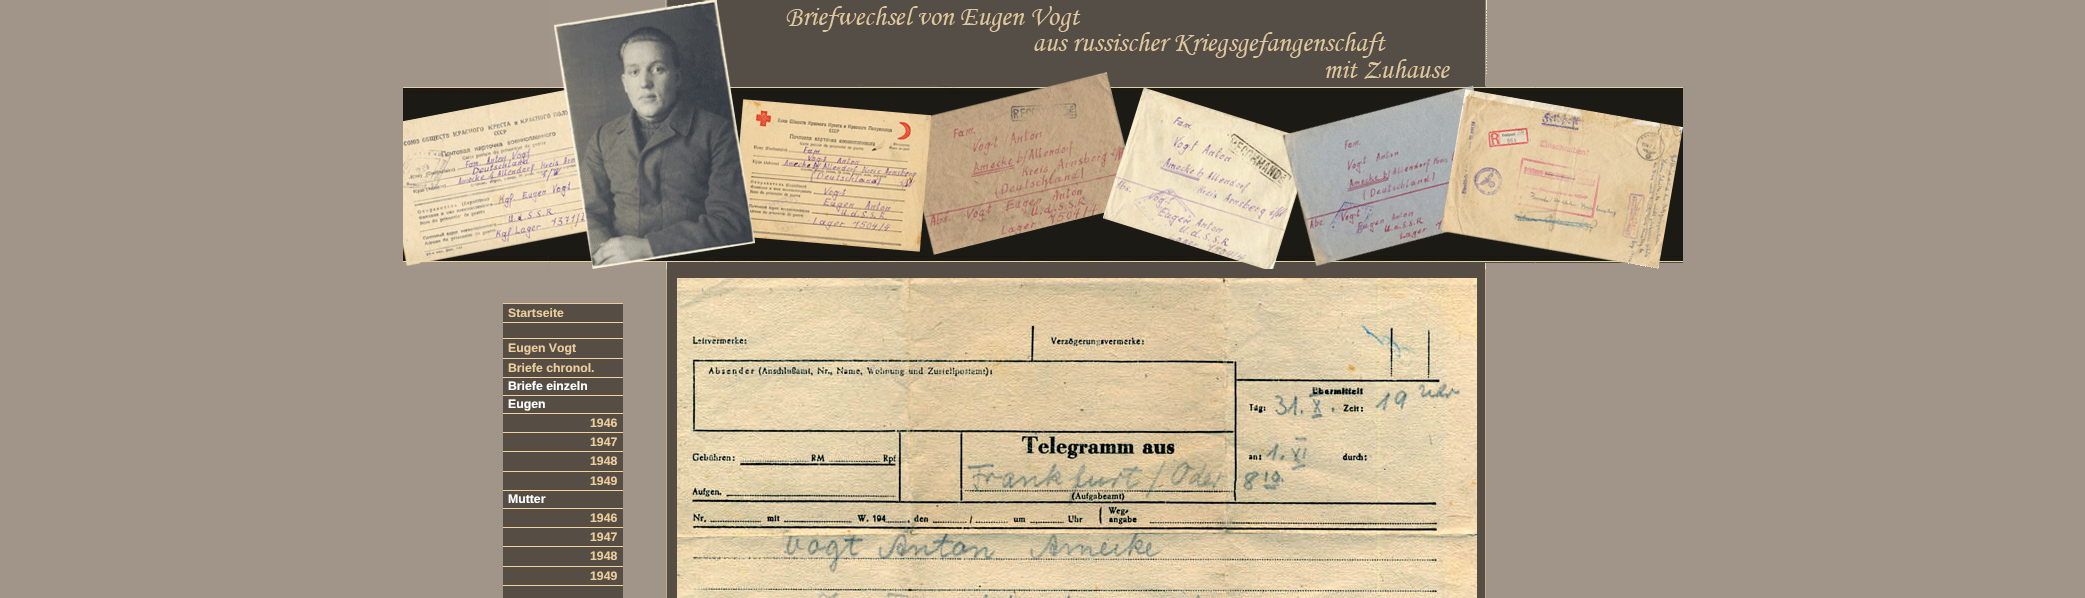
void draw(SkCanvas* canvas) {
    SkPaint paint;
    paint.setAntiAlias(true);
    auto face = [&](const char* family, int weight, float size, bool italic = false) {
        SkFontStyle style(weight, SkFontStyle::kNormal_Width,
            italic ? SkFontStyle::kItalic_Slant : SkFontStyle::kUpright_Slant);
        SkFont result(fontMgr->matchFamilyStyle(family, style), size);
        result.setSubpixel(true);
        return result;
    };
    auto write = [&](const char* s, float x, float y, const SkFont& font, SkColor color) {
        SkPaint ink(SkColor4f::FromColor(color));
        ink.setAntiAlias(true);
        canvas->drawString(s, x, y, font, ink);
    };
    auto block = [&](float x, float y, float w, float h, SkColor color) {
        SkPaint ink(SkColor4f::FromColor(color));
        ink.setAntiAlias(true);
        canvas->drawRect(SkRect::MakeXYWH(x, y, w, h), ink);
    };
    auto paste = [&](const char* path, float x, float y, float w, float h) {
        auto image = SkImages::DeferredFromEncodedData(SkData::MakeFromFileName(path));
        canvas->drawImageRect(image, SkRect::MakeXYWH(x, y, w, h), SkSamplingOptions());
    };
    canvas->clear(SkColorSetRGB(161, 148, 137));
    block(1485, 268, 1, 330, SkColorSetRGB(193, 171, 138));
    block(666, 268, 1, 330, SkColorSetRGB(193, 171, 138));
    paste("pic1.png", 403, 0, 1280, 269);
    block(503, 304, 120, 18, SkColorSetRGB(86, 78, 68));
    block(503, 303, 120, 1, SkColorSetRGB(237, 205, 156));
    block(503, 322, 120, 1, SkColorSetRGB(243, 210, 159));
    auto kFont1 = face("Liberation Sans", 700, 12.25f);
    write("Startseite", 508, 317, kFont1, SkColorSetRGB(237, 205, 156));
    block(503, 323, 120, 15, SkColorSetRGB(86, 78, 68));
    block(503, 338, 120, 1, SkColorSetRGB(243, 210, 159));
    block(503, 339, 120, 19, SkColorSetRGB(86, 78, 68));
    block(503, 358, 120, 1, SkColorSetRGB(243, 210, 159));
    write("Eugen Vogt", 508, 352, kFont1, SkColorSetRGB(237, 205, 156));
    block(503, 359, 120, 18, SkColorSetRGB(86, 78, 68));
    block(503, 377, 120, 1, SkColorSetRGB(243, 210, 159));
    write("Briefe chronol.", 508, 372, kFont1, SkColorSetRGB(237, 205, 156));
    block(503, 378, 120, 17, SkColorSetRGB(86, 78, 68));
    block(503, 395, 120, 1, SkColorSetRGB(243, 210, 159));
    write("Briefe einzeln", 508, 390, kFont1, SK_ColorWHITE);
    block(503, 396, 120, 17, SkColorSetRGB(86, 78, 68));
    block(503, 413, 120, 1, SkColorSetRGB(243, 210, 159));
    write("Eugen", 508, 408, kFont1, SK_ColorWHITE);
    block(503, 414, 120, 18, SkColorSetRGB(86, 78, 68));
    block(503, 432, 120, 1, SkColorSetRGB(243, 210, 159));
    write("1946", 590, 427, kFont1, SkColorSetRGB(237, 205, 156));
    block(503, 433, 120, 18, SkColorSetRGB(86, 78, 68));
    block(503, 451, 120, 1, SkColorSetRGB(243, 210, 159));
    write("1947", 590, 446, kFont1, SkColorSetRGB(237, 205, 156));
    block(503, 452, 120, 19, SkColorSetRGB(86, 78, 68));
    block(503, 471, 120, 1, SkColorSetRGB(243, 210, 159));
    write("1948", 590, 465, kFont1, SkColorSetRGB(237, 205, 156));
    block(503, 472, 120, 18, SkColorSetRGB(86, 78, 68));
    block(503, 490, 120, 1, SkColorSetRGB(243, 210, 159));
    write("1949", 590, 485, kFont1, SkColorSetRGB(237, 205, 156));
    block(503, 491, 120, 17, SkColorSetRGB(86, 78, 68));
    block(503, 508, 120, 1, SkColorSetRGB(243, 210, 159));
    write("Mutter", 508, 503, kFont1, SK_ColorWHITE);
    block(503, 509, 120, 18, SkColorSetRGB(86, 78, 68));
    block(503, 527, 120, 1, SkColorSetRGB(243, 210, 159));
    write("1946", 590, 522, kFont1, SkColorSetRGB(237, 205, 156));
    block(503, 528, 120, 18, SkColorSetRGB(86, 78, 68));
    block(503, 546, 120, 1, SkColorSetRGB(243, 210, 159));
    write("1947", 590, 541, kFont1, SkColorSetRGB(237, 205, 156));
    block(503, 547, 120, 19, SkColorSetRGB(86, 78, 68));
    block(503, 566, 120, 1, SkColorSetRGB(243, 210, 159));
    write("1948", 590, 560, kFont1, SkColorSetRGB(237, 205, 156));
    block(503, 567, 120, 18, SkColorSetRGB(86, 78, 68));
    block(503, 585, 120, 1, SkColorSetRGB(243, 210, 159));
    write("1949", 590, 580, kFont1, SkColorSetRGB(237, 205, 156));
    block(503, 586, 120, 12, SkColorSetRGB(86, 78, 68));
    block(667, 269, 818, 329, SkColorSetRGB(86, 78, 69));
    paste("pic2.png", 677, 278, 800, 320);
}
